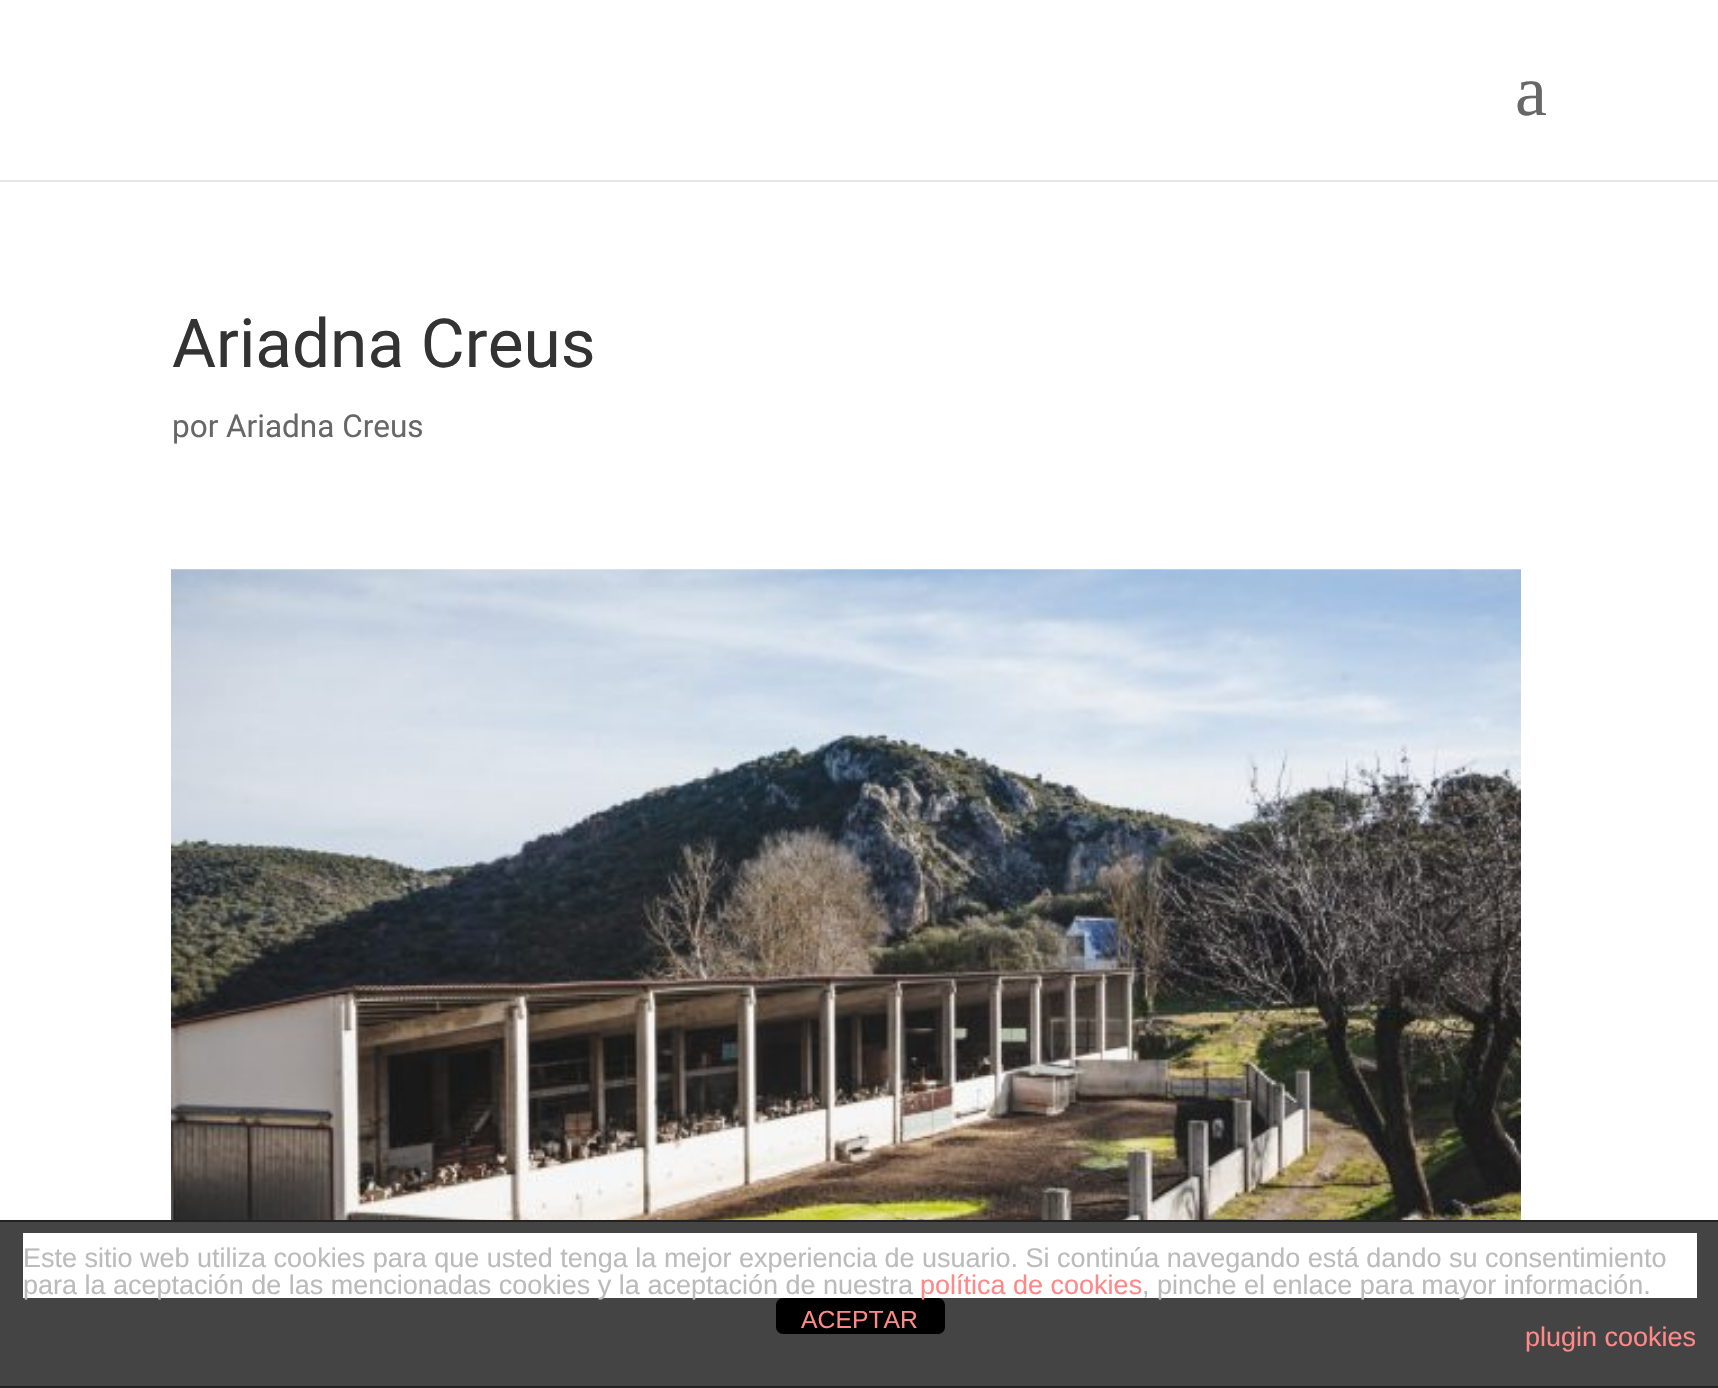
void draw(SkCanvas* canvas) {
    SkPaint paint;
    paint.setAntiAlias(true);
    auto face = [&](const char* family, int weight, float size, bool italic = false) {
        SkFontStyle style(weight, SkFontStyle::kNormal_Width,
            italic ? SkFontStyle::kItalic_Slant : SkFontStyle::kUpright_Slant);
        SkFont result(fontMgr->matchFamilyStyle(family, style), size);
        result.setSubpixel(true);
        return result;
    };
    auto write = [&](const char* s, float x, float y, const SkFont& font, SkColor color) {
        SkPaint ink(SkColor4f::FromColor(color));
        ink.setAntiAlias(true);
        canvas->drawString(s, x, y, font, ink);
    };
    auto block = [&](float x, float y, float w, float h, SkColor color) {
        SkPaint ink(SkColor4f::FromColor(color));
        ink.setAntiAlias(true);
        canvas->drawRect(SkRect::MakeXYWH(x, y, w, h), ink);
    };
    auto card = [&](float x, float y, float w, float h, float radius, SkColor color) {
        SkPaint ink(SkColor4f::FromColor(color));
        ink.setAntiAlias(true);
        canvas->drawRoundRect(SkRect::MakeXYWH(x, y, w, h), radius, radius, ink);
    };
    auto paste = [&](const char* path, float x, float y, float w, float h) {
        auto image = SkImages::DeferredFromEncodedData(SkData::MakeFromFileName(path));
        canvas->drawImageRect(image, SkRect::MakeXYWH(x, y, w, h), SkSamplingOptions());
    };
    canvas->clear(SK_ColorWHITE);
    block(0, 180, 1718, 2, SkColorSetRGB(230, 230, 230));
    auto kFont1 = face("Liberation Serif", 400, 72);
    write("a", 1515, 115, kFont1, SkColorSetRGB(103, 103, 103));
    auto kFont2 = face("Roboto", 400, 67.5f);
    write("Ariadna Creus", 172, 367, kFont2, SkColorSetRGB(51, 51, 51));
    auto kFont3 = face("Roboto", 400, 31.5f);
    write("por", 172, 437, kFont3, SkColorSetRGB(103, 103, 103));
    write("Ariadna Creus", 226, 437, kFont3, SkColorSetRGB(103, 103, 103));
    paste("pic1.png", 171, 569, 1350, 651);
    block(0, 1222, 1718, 164, SkColorSetRGB(68, 68, 68));
    block(0, 1220, 1718, 2, SkColorSetRGB(34, 34, 34));
    block(0, 1386, 1718, 2, SkColorSetRGB(34, 34, 34));
    block(23, 1233, 1674, 65, SK_ColorWHITE);
    auto kFont4 = face("Liberation Sans", 400, 27);
    write("Este sitio web utiliza cookies para que usted tenga la mejor experiencia de usuario. Si continúa navegando está dando su consentimiento", 23, 1267, kFont4, SkColorSetRGB(187, 187, 187));
    card(776, 1298, 169, 36, 7, SK_ColorBLACK);
    write("para la aceptación de las mencionadas cookies y la aceptación de nuestra", 23, 1294, kFont4, SkColorSetRGB(187, 187, 187));
    write("política de cookies", 920, 1294, kFont4, SkColorSetRGB(255, 136, 136));
    write(", pinche el enlace para mayor información.", 1142, 1294, kFont4, SkColorSetRGB(187, 187, 187));
    write("plugin cookies", 1525, 1346, kFont4, SkColorSetRGB(255, 136, 136));
    auto kFont5 = face("Liberation Sans", 400, 24.75f);
    write("ACEPTAR", 801, 1328, kFont5, SkColorSetRGB(255, 136, 136));
}
